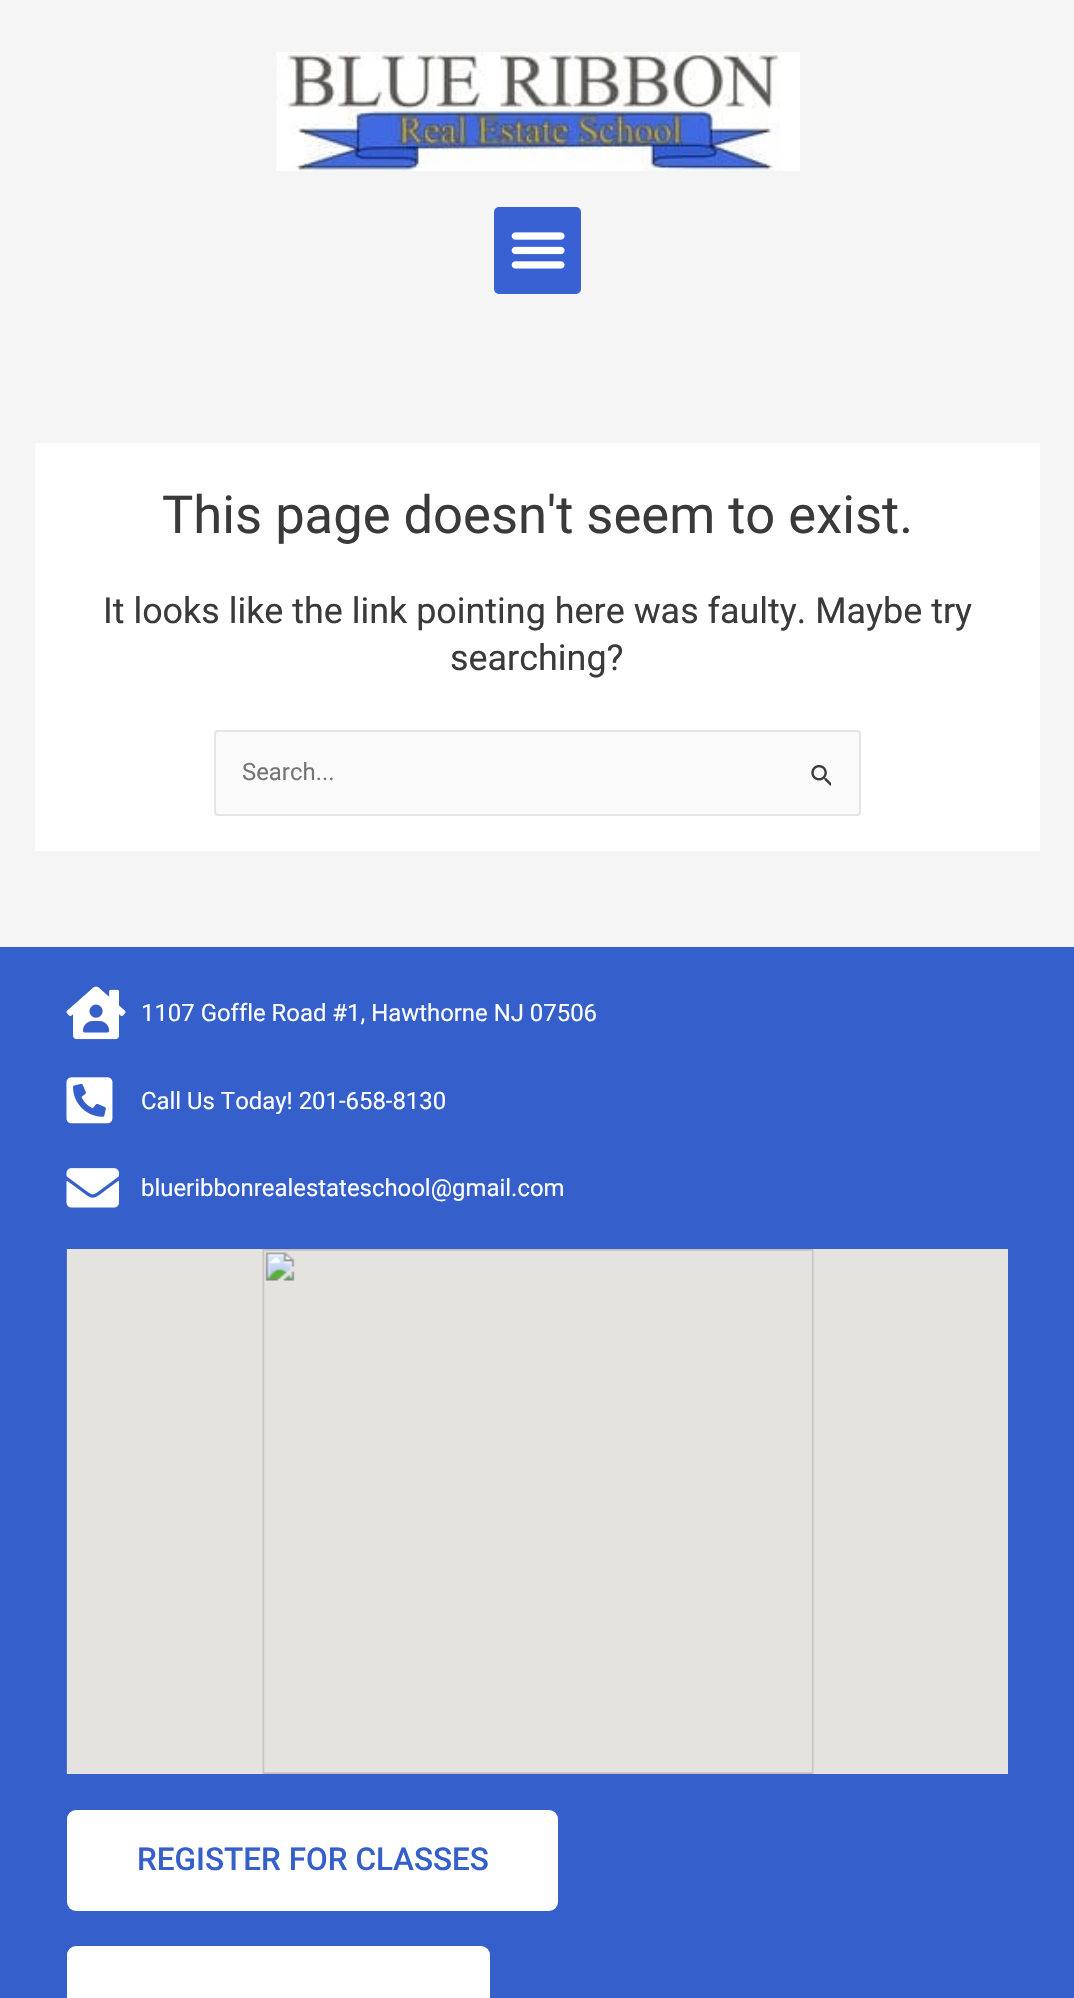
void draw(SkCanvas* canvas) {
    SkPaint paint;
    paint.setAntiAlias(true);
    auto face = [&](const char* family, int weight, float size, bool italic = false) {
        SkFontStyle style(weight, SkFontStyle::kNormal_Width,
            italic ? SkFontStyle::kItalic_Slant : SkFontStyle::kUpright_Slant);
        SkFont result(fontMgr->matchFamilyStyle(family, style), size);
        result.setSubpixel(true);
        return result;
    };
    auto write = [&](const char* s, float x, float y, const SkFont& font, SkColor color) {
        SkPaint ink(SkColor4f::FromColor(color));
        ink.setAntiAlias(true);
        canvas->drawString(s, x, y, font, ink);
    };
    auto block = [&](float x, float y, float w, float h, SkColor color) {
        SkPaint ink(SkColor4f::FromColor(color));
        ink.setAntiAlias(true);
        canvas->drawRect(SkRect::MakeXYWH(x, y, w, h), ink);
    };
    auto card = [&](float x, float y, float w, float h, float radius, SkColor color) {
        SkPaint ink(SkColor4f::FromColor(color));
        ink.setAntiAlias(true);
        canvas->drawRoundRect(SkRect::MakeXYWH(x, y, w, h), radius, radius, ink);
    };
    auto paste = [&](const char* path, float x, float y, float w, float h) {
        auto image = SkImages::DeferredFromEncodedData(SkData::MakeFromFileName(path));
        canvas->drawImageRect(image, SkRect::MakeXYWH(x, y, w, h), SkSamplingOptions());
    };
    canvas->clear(SkColorSetRGB(245, 245, 245));
    paste("pic1.png", 276, 52, 524, 119);
    card(494, 207, 87, 87, 5, SkColorSetRGB(57, 97, 211));
    paste("pic2.png", 511, 232, 54, 37);
    block(35, 443, 1005, 408, SK_ColorWHITE);
    auto kFont1 = face("Roboto", 400, 52.5f);
    write("This page doesn't seem to exist.", 162, 533, kFont1, SkColorSetRGB(58, 58, 58));
    auto kFont2 = face("Roboto", 400, 35.9f);
    write("It looks like the link pointing here was faulty. Maybe try", 103, 623, kFont2, SkColorSetRGB(58, 58, 58));
    write("searching?", 450, 670, kFont2, SkColorSetRGB(58, 58, 58));
    paint.setColor(SkColorSetRGB(250, 250, 250));
    canvas->drawRoundRect(SkRect::MakeXYWH(215, 731, 645, 84), 3, 3, paint);
    paint.setStyle(SkPaint::kStroke_Style);
    paint.setStrokeWidth(2);
    paint.setColor(SkColorSetRGB(229, 229, 229));
    canvas->drawRoundRect(SkRect::MakeXYWH(215, 731, 645, 84), 3, 3, paint);
    auto kFont3 = face("Roboto", 400, 23.9f);
    write("Search...", 242, 780, kFont3, SkColorSetRGB(117, 117, 117));
    paste("pic3.png", 811, 765, 20, 21);
    block(0, 947, 1074, 1051, SkColorSetRGB(53, 95, 203));
    paste("pic4.png", 66, 986, 60, 54);
    write("1107 Goffle Road #1, Hawthorne NJ 07506", 141, 1021, kFont3, SK_ColorWHITE);
    paste("pic5.png", 66, 1077, 47, 47);
    write("Call Us Today! 201-658-8130", 141, 1109, kFont3, SK_ColorWHITE);
    paste("pic6.png", 66, 1168, 53, 40);
    write("blueribbonrealestateschool@gmail.com", 141, 1196, kFont3, SK_ColorWHITE);
    paste("pic7.png", 66, 1249, 942, 525);
    card(67, 1810, 491, 101, 9, SK_ColorWHITE);
    auto kFont4 = face("Roboto", 500, 31.5f);
    write("REGISTER FOR CLASSES", 137, 1870, kFont4, SkColorSetRGB(53, 95, 203));
    card(67, 1946, 423, 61, 9, SK_ColorWHITE);
}
